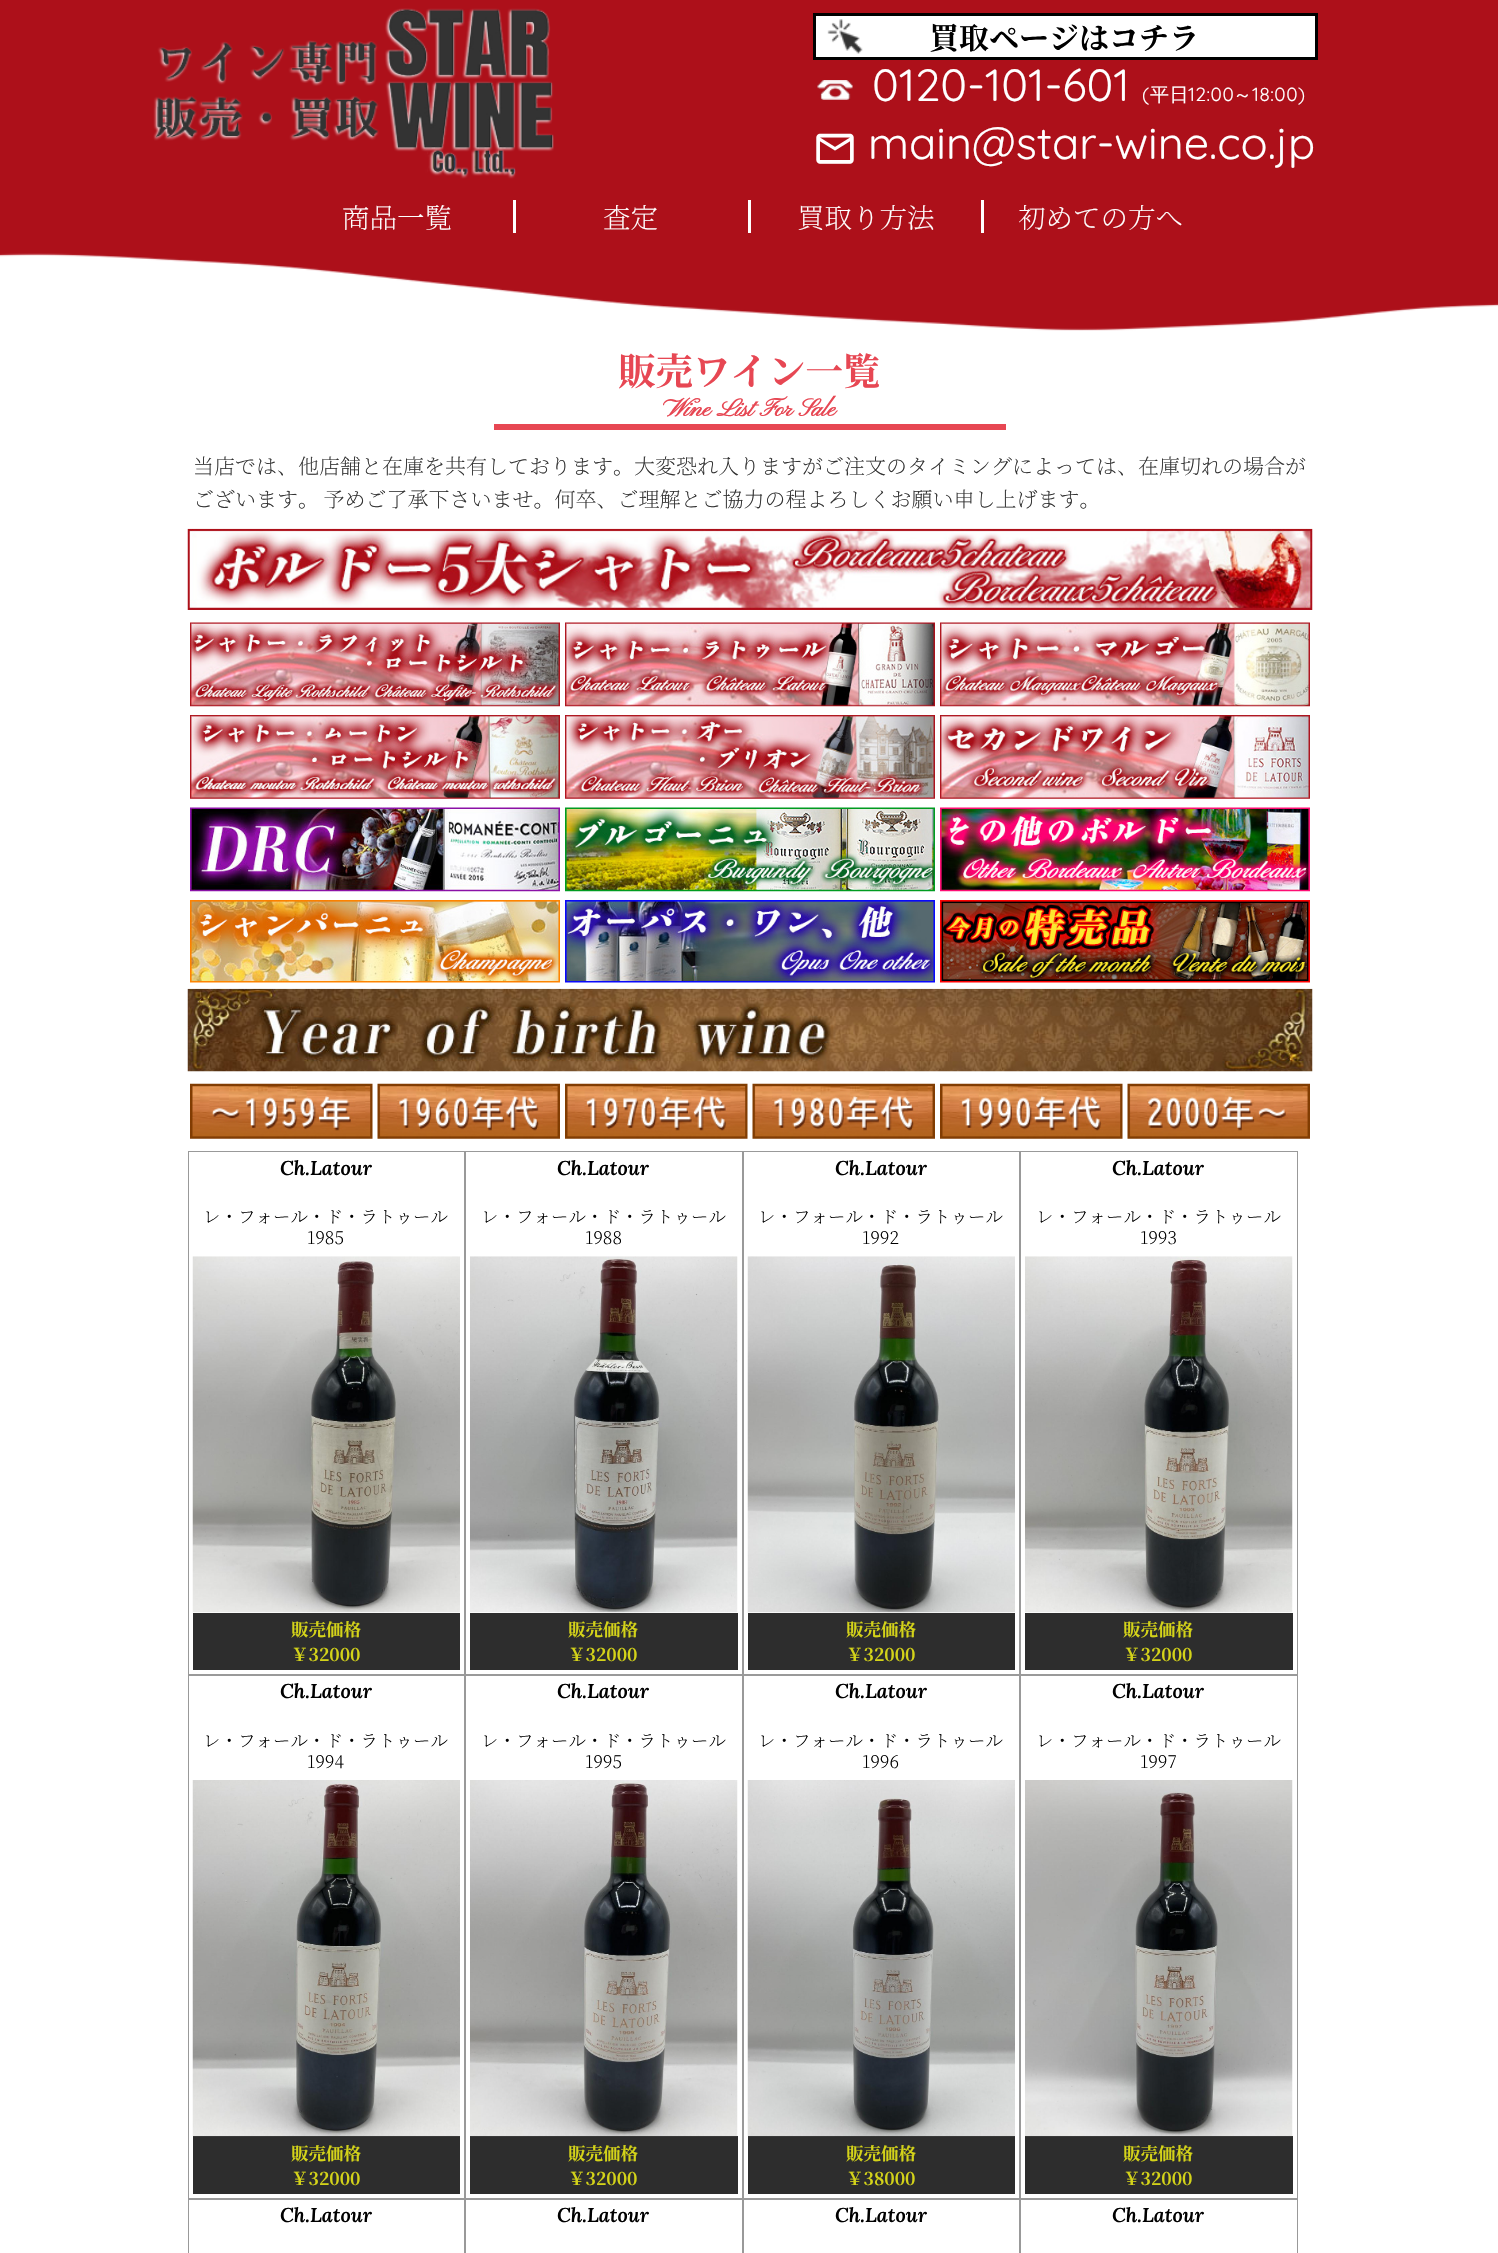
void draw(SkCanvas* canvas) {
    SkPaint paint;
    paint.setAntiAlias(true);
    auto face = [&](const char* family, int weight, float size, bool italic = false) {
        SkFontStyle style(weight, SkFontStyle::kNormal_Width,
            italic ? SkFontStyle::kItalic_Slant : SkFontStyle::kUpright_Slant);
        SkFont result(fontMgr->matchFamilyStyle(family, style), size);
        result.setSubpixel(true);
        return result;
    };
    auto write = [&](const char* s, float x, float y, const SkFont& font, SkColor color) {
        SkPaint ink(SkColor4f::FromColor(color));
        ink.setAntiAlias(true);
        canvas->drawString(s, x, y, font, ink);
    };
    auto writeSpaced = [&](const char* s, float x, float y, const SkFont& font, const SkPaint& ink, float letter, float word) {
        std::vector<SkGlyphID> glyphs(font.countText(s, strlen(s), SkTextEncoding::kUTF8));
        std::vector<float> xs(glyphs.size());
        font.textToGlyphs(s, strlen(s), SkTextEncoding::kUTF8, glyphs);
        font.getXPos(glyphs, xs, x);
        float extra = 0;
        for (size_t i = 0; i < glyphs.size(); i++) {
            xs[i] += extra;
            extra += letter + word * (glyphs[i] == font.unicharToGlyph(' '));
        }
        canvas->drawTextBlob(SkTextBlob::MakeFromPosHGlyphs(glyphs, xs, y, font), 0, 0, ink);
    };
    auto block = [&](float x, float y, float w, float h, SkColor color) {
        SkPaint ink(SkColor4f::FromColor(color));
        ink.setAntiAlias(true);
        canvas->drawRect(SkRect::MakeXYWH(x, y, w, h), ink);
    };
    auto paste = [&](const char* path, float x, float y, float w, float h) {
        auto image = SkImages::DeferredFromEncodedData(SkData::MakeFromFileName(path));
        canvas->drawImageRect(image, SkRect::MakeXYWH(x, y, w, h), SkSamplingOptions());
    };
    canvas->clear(SK_ColorWHITE);
    paste("pic1.png", 0, 0, 1498, 331);
    paste("pic2.png", 153, 8, 401, 171);
    block(816, 16, 499, 41, SK_ColorWHITE);
    paste("pic3.png", 827, 19, 36, 35);
    paint.setStyle(SkPaint::kStroke_Style);
    paint.setStrokeWidth(3);
    paint.setColor(SK_ColorBLACK);
    canvas->drawRect(SkRect::MakeXYWH(814.5f, 14.5f, 502, 44), paint);
    auto kFont1 = face("Noto Serif JP", 700, 30);
    write("買取ページはコチラ", 929, 49, kFont1, SK_ColorBLACK);
    paste("pic4.png", 817, 80, 36, 20);
    auto kFont2 = face("Quicksand", 300, 45);
    write("0120-101-601", 872, 101, kFont2, SK_ColorWHITE);
    auto kFont3 = face("Quicksand", 300, 19);
    paint.setStyle(SkPaint::kFill_Style);
    paint.setColor(SK_ColorWHITE);
    writeSpaced("(", 1142, 101, kFont3, paint, 0.5f, 0);
    auto kFont4 = face("WenQuanYi Zen Hei", 500, 19);
    writeSpaced("平日", 1150, 101, kFont4, paint, 0.5f, 0);
    writeSpaced("12:00", 1188, 101, kFont3, paint, 0.5f, 0);
    writeSpaced("～", 1233, 101, kFont4, paint, 0.5f, 0);
    writeSpaced("18:00)", 1252, 101, kFont3, paint, 0.5f, 0);
    paste("pic5.png", 816, 133, 38, 31);
    write("main@star-wine.co.jp", 868, 159, kFont2, SK_ColorWHITE);
    block(513, 200, 3, 33, SK_ColorWHITE);
    auto kFont5 = face("Noto Serif JP", 200, 27.5f);
    write("商品一覧", 342, 228, kFont5, SK_ColorWHITE);
    block(748, 200, 3, 33, SK_ColorWHITE);
    write("査定", 603, 228, kFont5, SK_ColorWHITE);
    block(981, 200, 3, 33, SK_ColorWHITE);
    write("買取り方法", 797, 228, kFont5, SK_ColorWHITE);
    write("初めての方へ", 1018, 228, kFont5, SK_ColorWHITE);
    block(494, 424, 512, 6, SkColorSetRGB(231, 71, 83));
    auto kFont6 = face("Noto Serif JP", 700, 37.5f);
    write("販売ワイン一覧", 618, 385, kFont6, SkColorSetRGB(231, 71, 83));
    auto kFont7 = face("Pinyon Script", 700, 25);
    write("Wine List For Sale", 663, 416, kFont7, SkColorSetRGB(231, 71, 83));
    auto kFont8 = face("Noto Serif JP", 200, 21);
    write("当店では、他店舗と在庫を共有しております。大変恐れ入りますがご注文のタイミングによっては、在庫切れの場合が", 193, 474, kFont8, SkColorSetRGB(51, 51, 51));
    paint.setColor(SkColorSetRGB(51, 51, 51));
    writeSpaced("ございます。 予めご了承下さいませ。何卒、ご理解とご協力の程よろしくお願い申し上げます。", 193, 507, kFont8, paint, 0, -1);
    paste("pic6.png", 187, 528, 1126, 82);
    paste("pic7.png", 190, 622, 370, 85);
    paste("pic8.png", 565, 622, 370, 85);
    paste("pic9.png", 940, 622, 370, 85);
    paste("pic10.png", 190, 715, 370, 84);
    paste("pic11.png", 565, 715, 370, 84);
    paste("pic12.png", 940, 715, 370, 84);
    paste("pic13.png", 190, 807, 370, 85);
    paste("pic14.png", 565, 807, 370, 85);
    paste("pic15.png", 940, 807, 370, 85);
    paste("pic16.png", 190, 900, 370, 83);
    paste("pic17.png", 565, 900, 370, 83);
    paste("pic18.png", 940, 900, 370, 83);
    paste("pic19.png", 187, 988, 1126, 84);
    paste("pic20.png", 190, 1083, 183, 56);
    paste("pic21.png", 377, 1083, 183, 56);
    paste("pic22.png", 565, 1083, 183, 56);
    paste("pic23.png", 752, 1083, 183, 56);
    paste("pic24.png", 940, 1083, 183, 56);
    paste("pic25.png", 1127, 1083, 183, 56);
    paint.setStyle(SkPaint::kStroke_Style);
    paint.setStrokeWidth(1);
    paint.setColor(SkColorSetRGB(153, 153, 153));
    canvas->drawRect(SkRect::MakeXYWH(188.5f, 1151.5f, 276, 523), paint);
    auto kFont9 = face("Lora", 600, 20, true);
    write("Ch.Latour", 280, 1175, kFont9, SK_ColorBLACK);
    auto kFont10 = face("Noto Serif JP", 200, 17.5f);
    write("レ・フォール・ド・ラトゥール", 203, 1223, kFont10, SK_ColorBLACK);
    write("1985", 307, 1244, kFont10, SK_ColorBLACK);
    paste("pic26.png", 192, 1256, 268, 357);
    block(193, 1613, 267, 57, SkColorSetRGB(45, 45, 45));
    auto kFont11 = face("Noto Serif JP", 700, 17.5f);
    write("販売価格", 291, 1636, kFont11, SkColorSetRGB(212, 211, 25));
    write("￥32000", 291, 1661, kFont11, SkColorSetRGB(212, 211, 25));
    canvas->drawRect(SkRect::MakeXYWH(465.5f, 1151.5f, 277, 523), paint);
    write("Ch.Latour", 557, 1175, kFont9, SK_ColorBLACK);
    write("レ・フォール・ド・ラトゥール", 481, 1223, kFont10, SK_ColorBLACK);
    write("1988", 585, 1244, kFont10, SK_ColorBLACK);
    paste("pic27.png", 470, 1256, 268, 357);
    block(470, 1613, 268, 57, SkColorSetRGB(45, 45, 45));
    write("販売価格", 568, 1636, kFont11, SkColorSetRGB(212, 211, 25));
    write("￥32000", 568, 1661, kFont11, SkColorSetRGB(212, 211, 25));
    canvas->drawRect(SkRect::MakeXYWH(743.5f, 1151.5f, 276, 523), paint);
    write("Ch.Latour", 835, 1175, kFont9, SK_ColorBLACK);
    write("レ・フォール・ド・ラトゥール", 758, 1223, kFont10, SK_ColorBLACK);
    write("1992", 862, 1244, kFont10, SK_ColorBLACK);
    paste("pic28.png", 747, 1256, 268, 357);
    block(748, 1613, 267, 57, SkColorSetRGB(45, 45, 45));
    write("販売価格", 846, 1636, kFont11, SkColorSetRGB(212, 211, 25));
    write("￥32000", 846, 1661, kFont11, SkColorSetRGB(212, 211, 25));
    canvas->drawRect(SkRect::MakeXYWH(1020.5f, 1151.5f, 277, 523), paint);
    write("Ch.Latour", 1112, 1175, kFont9, SK_ColorBLACK);
    write("レ・フォール・ド・ラトゥール", 1036, 1223, kFont10, SK_ColorBLACK);
    write("1993", 1140, 1244, kFont10, SK_ColorBLACK);
    paste("pic29.png", 1025, 1256, 268, 357);
    block(1025, 1613, 268, 57, SkColorSetRGB(45, 45, 45));
    write("販売価格", 1123, 1636, kFont11, SkColorSetRGB(212, 211, 25));
    write("￥32000", 1123, 1661, kFont11, SkColorSetRGB(212, 211, 25));
    canvas->drawRect(SkRect::MakeXYWH(188.5f, 1675.5f, 276, 523), paint);
    write("Ch.Latour", 280, 1698, kFont9, SK_ColorBLACK);
    write("レ・フォール・ド・ラトゥール", 203, 1747, kFont10, SK_ColorBLACK);
    write("1994", 307, 1768, kFont10, SK_ColorBLACK);
    block(193, 2136, 267, 58, SkColorSetRGB(45, 45, 45));
    paste("pic30.png", 192, 1780, 268, 357);
    write("販売価格", 291, 2160, kFont11, SkColorSetRGB(212, 211, 25));
    write("￥32000", 291, 2185, kFont11, SkColorSetRGB(212, 211, 25));
    canvas->drawRect(SkRect::MakeXYWH(465.5f, 1675.5f, 277, 523), paint);
    write("Ch.Latour", 557, 1698, kFont9, SK_ColorBLACK);
    write("レ・フォール・ド・ラトゥール", 481, 1747, kFont10, SK_ColorBLACK);
    write("1995", 585, 1768, kFont10, SK_ColorBLACK);
    block(470, 2136, 268, 58, SkColorSetRGB(45, 45, 45));
    paste("pic31.png", 470, 1780, 268, 357);
    write("販売価格", 568, 2160, kFont11, SkColorSetRGB(212, 211, 25));
    write("￥32000", 568, 2185, kFont11, SkColorSetRGB(212, 211, 25));
    canvas->drawRect(SkRect::MakeXYWH(743.5f, 1675.5f, 276, 523), paint);
    write("Ch.Latour", 835, 1698, kFont9, SK_ColorBLACK);
    write("レ・フォール・ド・ラトゥール", 758, 1747, kFont10, SK_ColorBLACK);
    write("1996", 862, 1768, kFont10, SK_ColorBLACK);
    block(748, 2136, 267, 58, SkColorSetRGB(45, 45, 45));
    paste("pic32.png", 747, 1780, 268, 357);
    write("販売価格", 846, 2160, kFont11, SkColorSetRGB(212, 211, 25));
    write("￥38000", 846, 2185, kFont11, SkColorSetRGB(212, 211, 25));
    canvas->drawRect(SkRect::MakeXYWH(1020.5f, 1675.5f, 277, 523), paint);
    write("Ch.Latour", 1112, 1698, kFont9, SK_ColorBLACK);
    write("レ・フォール・ド・ラトゥール", 1036, 1747, kFont10, SK_ColorBLACK);
    write("1997", 1140, 1768, kFont10, SK_ColorBLACK);
    block(1025, 2136, 268, 58, SkColorSetRGB(45, 45, 45));
    paste("pic33.png", 1025, 1780, 268, 357);
    write("販売価格", 1123, 2160, kFont11, SkColorSetRGB(212, 211, 25));
    write("￥32000", 1123, 2185, kFont11, SkColorSetRGB(212, 211, 25));
    canvas->drawRect(SkRect::MakeXYWH(188.5f, 2199.5f, 276, 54), paint);
    write("Ch.Latour", 280, 2222, kFont9, SK_ColorBLACK);
    canvas->drawRect(SkRect::MakeXYWH(465.5f, 2199.5f, 277, 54), paint);
    write("Ch.Latour", 557, 2222, kFont9, SK_ColorBLACK);
    canvas->drawRect(SkRect::MakeXYWH(743.5f, 2199.5f, 276, 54), paint);
    write("Ch.Latour", 835, 2222, kFont9, SK_ColorBLACK);
    canvas->drawRect(SkRect::MakeXYWH(1020.5f, 2199.5f, 277, 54), paint);
    write("Ch.Latour", 1112, 2222, kFont9, SK_ColorBLACK);
}
